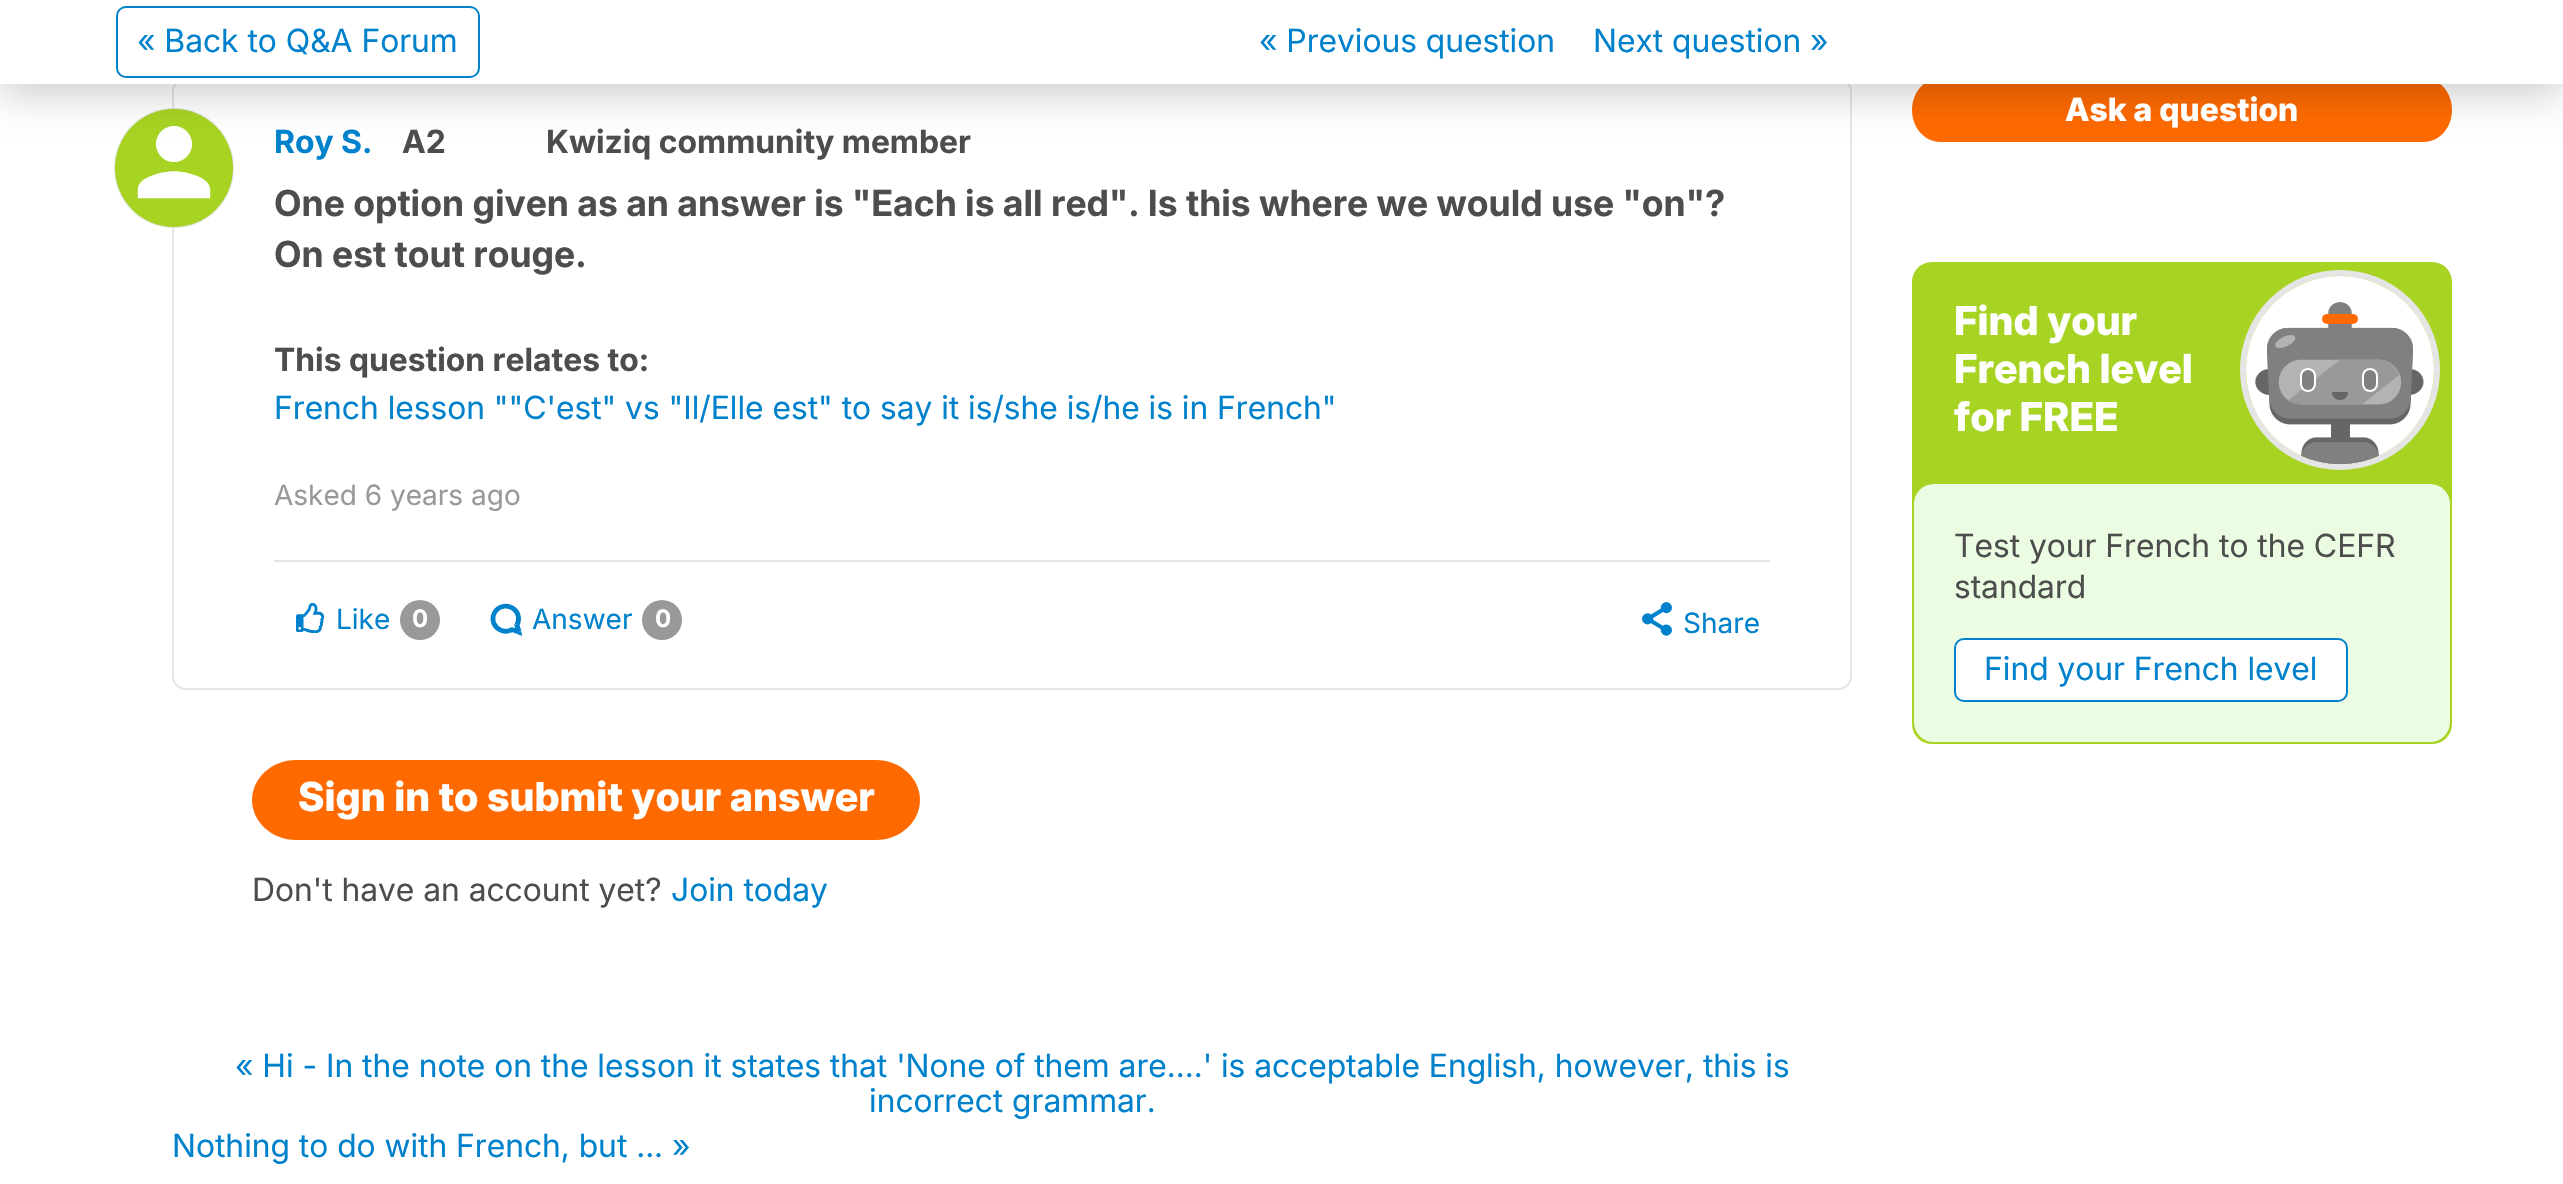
void draw(SkCanvas* canvas) {
    SkPaint paint;
    paint.setAntiAlias(true);
    auto face = [&](const char* family, int weight, float size, bool italic = false) {
        SkFontStyle style(weight, SkFontStyle::kNormal_Width,
            italic ? SkFontStyle::kItalic_Slant : SkFontStyle::kUpright_Slant);
        SkFont result(fontMgr->matchFamilyStyle(family, style), size);
        result.setSubpixel(true);
        return result;
    };
    auto write = [&](const char* s, float x, float y, const SkFont& font, SkColor color) {
        SkPaint ink(SkColor4f::FromColor(color));
        ink.setAntiAlias(true);
        canvas->drawString(s, x, y, font, ink);
    };
    auto block = [&](float x, float y, float w, float h, SkColor color) {
        SkPaint ink(SkColor4f::FromColor(color));
        ink.setAntiAlias(true);
        canvas->drawRect(SkRect::MakeXYWH(x, y, w, h), ink);
    };
    auto card = [&](float x, float y, float w, float h, float radius, SkColor color) {
        SkPaint ink(SkColor4f::FromColor(color));
        ink.setAntiAlias(true);
        canvas->drawRoundRect(SkRect::MakeXYWH(x, y, w, h), radius, radius, ink);
    };
    auto paste = [&](const char* path, float x, float y, float w, float h) {
        auto image = SkImages::DeferredFromEncodedData(SkData::MakeFromFileName(path));
        canvas->drawImageRect(image, SkRect::MakeXYWH(x, y, w, h), SkSamplingOptions());
    };
    canvas->clear(SK_ColorWHITE);
    paint.setStyle(SkPaint::kStroke_Style);
    paint.setStrokeWidth(2);
    paint.setColor(SkColorSetRGB(229, 229, 229));
    canvas->drawRoundRect(SkRect::MakeXYWH(173, 79, 1678, 610), 13, 13, paint);
    paint.setStyle(SkPaint::kFill_Style);
    canvas->drawCircle(174, 168, 60, paint);
    paste("pic1.png", 115, 109, 118, 118);
    paint.setColor(SkColorSetRGB(255, 106, 0));
    canvas->drawPath(SkPathBuilder().moveTo(1940, 78).lineTo(2424, 78).cubicTo(2439, 78, 2452, 92, 2452, 110).cubicTo(2452, 128, 2439, 142, 2424, 142).lineTo(1940, 142).cubicTo(1925, 142, 1912, 128, 1912, 110).cubicTo(1912, 92, 1925, 78, 1940, 78).close().detach(), paint);
    paint.setColor(SkColorSetARGB(51, 0, 0, 0));
    paint.setMaskFilter(SkMaskFilter::MakeBlur(kNormal_SkBlurStyle, 20));
    canvas->drawRect(SkRect::MakeXYWH(0, 10, 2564, 84), paint);
    paint.setMaskFilter(nullptr);
    block(0, 0, 2563, 84, SK_ColorWHITE);
    paint.setStyle(SkPaint::kStroke_Style);
    paint.setColor(SkColorSetRGB(0, 129, 204));
    canvas->drawRoundRect(SkRect::MakeXYWH(117, 7, 362, 70), 9, 9, paint);
    auto kFont1 = face("Inter", 400, 32);
    write("« Back to Q&A Forum", 137, 52, kFont1, SkColorSetRGB(0, 129, 204));
    write("« Previous question", 1259, 52, kFont1, SkColorSetRGB(0, 129, 204));
    write("Next question »", 1593, 52, kFont1, SkColorSetRGB(0, 129, 204));
    auto kFont2 = face("Inter", 700, 32);
    write("Roy S.", 274, 153, kFont2, SkColorSetRGB(0, 129, 204));
    write("A2", 402, 153, kFont2, SkColorSetRGB(77, 77, 77));
    write("Kwiziq community member", 546, 153, kFont2, SkColorSetRGB(77, 77, 77));
    auto kFont3 = face("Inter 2", 700, 36);
    write("One option given as an answer is \"Each is all red\". Is this where we would use \"on\"?", 274, 216, kFont3, SkColorSetRGB(77, 77, 77));
    write("On est tout rouge.", 274, 267, kFont3, SkColorSetRGB(77, 77, 77));
    write("This question relates to:", 274, 371, kFont2, SkColorSetRGB(77, 77, 77));
    write("French lesson \"\"C'est\" vs \"Il/Elle est\" to say it is/she is/he is in French\"", 274, 419, kFont1, SkColorSetRGB(0, 129, 204));
    auto kFont4 = face("Inter 2", 400, 28);
    write("Asked 6 years ago", 274, 505, kFont4, SkColorSetRGB(153, 153, 153));
    block(274, 560, 1496, 2, SkColorSetRGB(229, 229, 229));
    paste("pic2.png", 296, 603, 29, 30);
    write("Like", 336, 629, kFont4, SkColorSetRGB(0, 129, 204));
    paint.setStyle(SkPaint::kFill_Style);
    paint.setColor(SkColorSetRGB(153, 153, 153));
    canvas->drawCircle(420, 620, 20, paint);
    auto kFont5 = face("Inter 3", 700, 24);
    write("0", 412, 627, kFont5, SK_ColorWHITE);
    paste("pic3.png", 490, 603, 32, 33);
    write("Answer", 532, 629, kFont4, SkColorSetRGB(0, 129, 204));
    canvas->drawCircle(662, 620, 20, paint);
    write("0", 655, 627, kFont5, SK_ColorWHITE);
    paste("pic4.png", 1642, 602, 30, 34);
    write("Share", 1683, 633, kFont4, SkColorSetRGB(0, 129, 204));
    paint.setColor(SkColorSetRGB(255, 106, 0));
    canvas->drawPath(SkPathBuilder().moveTo(296, 760).lineTo(876, 760).cubicTo(900, 760, 920, 778, 920, 800).cubicTo(920, 822, 900, 840, 876, 840).lineTo(296, 840).cubicTo(272, 840, 252, 822, 252, 800).cubicTo(252, 778, 272, 760, 296, 760).close().detach(), paint);
    auto kFont6 = face("Inter 2", 800, 40);
    write("Sign in to submit your answer", 298, 811, kFont6, SK_ColorWHITE);
    write("Don't have an account yet?", 252, 901, kFont1, SkColorSetRGB(77, 77, 77));
    write("Join today", 671, 901, kFont1, SkColorSetRGB(0, 129, 204));
    write("« Hi - In the note on the lesson it states that 'None of them are....' is acceptable English, however, this is", 235, 1077, kFont1, SkColorSetRGB(0, 129, 204));
    write("incorrect grammar.", 869, 1112, kFont1, SkColorSetRGB(0, 129, 204));
    write("Nothing to do with French, but ... »", 172, 1157, kFont1, SkColorSetRGB(0, 129, 204));
    auto kFont7 = face("Inter", 800, 32);
    write("Ask a question", 2065, 121, kFont7, SK_ColorWHITE);
    card(1912, 262, 540, 482, 20, SkColorSetRGB(167, 212, 34));
    paint.setStyle(SkPaint::kStroke_Style);
    paint.setStrokeWidth(6);
    paint.setColor(SkColorSetRGB(229, 229, 229));
    canvas->drawCircle(2340, 370, 97, paint);
    paint.setStyle(SkPaint::kFill_Style);
    paint.setColor(SK_ColorWHITE);
    canvas->drawCircle(2340, 370, 94, paint);
    paste("pic5.png", 2255, 302, 169, 162);
    card(2322, 314, 36, 10, 5, SkColorSetRGB(255, 106, 0));
    card(2300, 368, 16, 24, 8, SK_ColorWHITE);
    card(2302, 370, 12, 20, 6, SkColorSetRGB(128, 128, 128));
    card(2362, 368, 16, 24, 8, SK_ColorWHITE);
    card(2364, 370, 12, 20, 6, SkColorSetRGB(128, 128, 128));
    paint.setColor(SkColorSetRGB(102, 102, 102));
    canvas->drawPath(SkPathBuilder().moveTo(2332, 392).lineTo(2348, 392).cubicTo(2348, 396.5f, 2344.5f, 400, 2340, 400).cubicTo(2335.5f, 400, 2332, 396.5f, 2332, 392).close().detach(), paint);
    write("Find your", 1954, 335, kFont6, SK_ColorWHITE);
    write("French level", 1954, 383, kFont6, SK_ColorWHITE);
    write("for FREE", 1954, 431, kFont6, SK_ColorWHITE);
    card(1914, 484, 536, 258, 20, SkColorSetRGB(236, 252, 227));
    write("Test your French to the CEFR", 1954, 557, kFont1, SkColorSetRGB(77, 77, 77));
    write("standard", 1954, 598, kFont1, SkColorSetRGB(77, 77, 77));
    paint.setColor(SK_ColorWHITE);
    canvas->drawRoundRect(SkRect::MakeXYWH(1955, 639, 392, 62), 9, 9, paint);
    paint.setStyle(SkPaint::kStroke_Style);
    paint.setStrokeWidth(2);
    paint.setColor(SkColorSetRGB(0, 129, 204));
    canvas->drawRoundRect(SkRect::MakeXYWH(1955, 639, 392, 62), 9, 9, paint);
    write("Find your French level", 1984, 680, kFont1, SkColorSetRGB(0, 129, 204));
}
